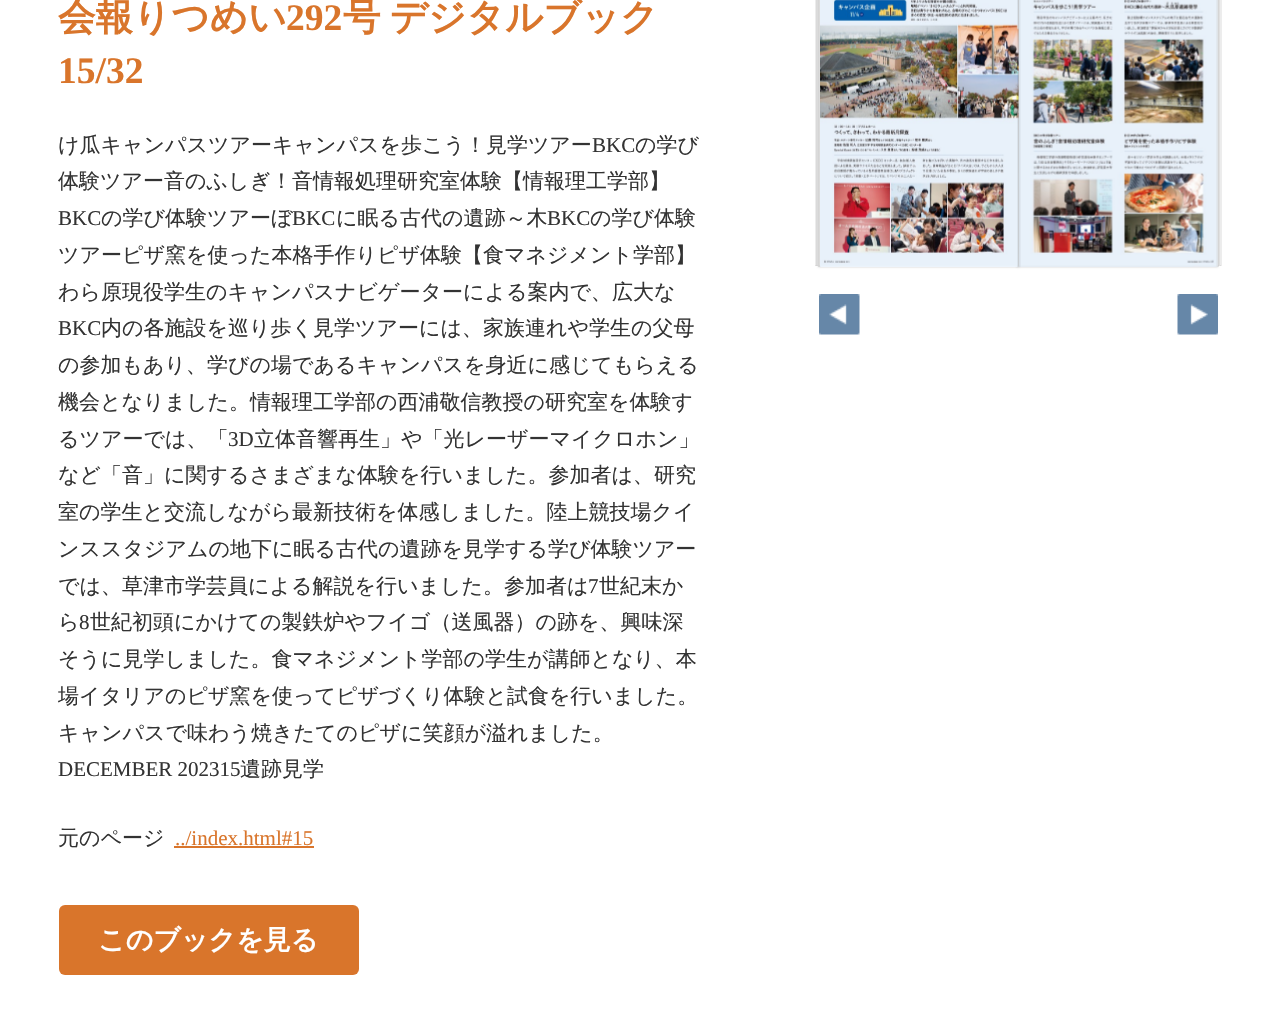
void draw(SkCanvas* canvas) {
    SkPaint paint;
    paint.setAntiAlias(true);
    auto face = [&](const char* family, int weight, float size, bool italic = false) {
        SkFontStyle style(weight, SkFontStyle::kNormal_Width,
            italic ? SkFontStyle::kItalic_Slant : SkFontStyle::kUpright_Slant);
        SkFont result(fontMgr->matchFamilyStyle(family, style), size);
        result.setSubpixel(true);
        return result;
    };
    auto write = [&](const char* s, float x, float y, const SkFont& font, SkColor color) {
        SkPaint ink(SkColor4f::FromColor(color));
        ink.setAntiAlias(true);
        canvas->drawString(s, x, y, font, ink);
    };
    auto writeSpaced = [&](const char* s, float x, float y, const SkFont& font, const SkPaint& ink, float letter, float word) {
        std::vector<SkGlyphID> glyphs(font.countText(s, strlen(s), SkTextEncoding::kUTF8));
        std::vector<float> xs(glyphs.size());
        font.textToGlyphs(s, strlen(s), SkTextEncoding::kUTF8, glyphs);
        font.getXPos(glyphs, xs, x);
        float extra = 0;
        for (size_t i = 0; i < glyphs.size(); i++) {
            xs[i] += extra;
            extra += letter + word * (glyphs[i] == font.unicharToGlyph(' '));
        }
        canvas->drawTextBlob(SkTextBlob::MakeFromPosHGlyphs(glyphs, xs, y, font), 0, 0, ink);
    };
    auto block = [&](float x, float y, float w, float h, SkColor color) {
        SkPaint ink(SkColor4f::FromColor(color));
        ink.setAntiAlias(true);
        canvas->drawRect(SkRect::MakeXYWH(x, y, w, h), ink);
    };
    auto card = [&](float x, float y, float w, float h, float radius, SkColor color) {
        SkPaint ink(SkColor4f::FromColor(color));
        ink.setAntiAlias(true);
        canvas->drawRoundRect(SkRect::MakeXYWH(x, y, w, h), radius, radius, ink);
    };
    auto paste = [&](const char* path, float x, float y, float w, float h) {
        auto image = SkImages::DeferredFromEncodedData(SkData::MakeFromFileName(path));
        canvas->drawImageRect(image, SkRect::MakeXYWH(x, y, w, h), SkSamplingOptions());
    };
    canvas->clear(SK_ColorWHITE);
    auto kFont1 = face("WenQuanYi Zen Hei", 700, 37.5f);
    write("会報りつめい", 58, 30, kFont1, SkColorSetRGB(217, 117, 43));
    auto kFont2 = face("Liberation Serif", 700, 37.5f);
    write("292", 286, 30, kFont2, SkColorSetRGB(217, 117, 43));
    paint.setColor(SkColorSetRGB(217, 117, 43));
    writeSpaced("号 デジタルブック", 343, 30, kFont1, paint, 0, -2);
    write("15/32", 58, 83, kFont2, SkColorSetRGB(217, 117, 43));
    auto kFont3 = face("WenQuanYi Zen Hei", 500, 21);
    write("け瓜キャンパスツアーキャンパスを歩こう！見学ツアー", 58, 152, kFont3, SkColorSetRGB(51, 51, 51));
    auto kFont4 = face("Liberation Serif", 400, 21);
    write("BKC", 592, 152, kFont4, SkColorSetRGB(51, 51, 51));
    write("の学び", 635, 152, kFont3, SkColorSetRGB(51, 51, 51));
    write("体験ツアー音のふしぎ！音情報処理研究室体験【情報理工学部】", 58, 188, kFont3, SkColorSetRGB(51, 51, 51));
    write("BKC", 58, 225, kFont4, SkColorSetRGB(51, 51, 51));
    write("の学び体験ツアーぼ", 101, 225, kFont3, SkColorSetRGB(51, 51, 51));
    write("BKC", 292, 225, kFont4, SkColorSetRGB(51, 51, 51));
    write("に眠る古代の遺跡～木", 336, 225, kFont3, SkColorSetRGB(51, 51, 51));
    write("BKC", 547, 225, kFont4, SkColorSetRGB(51, 51, 51));
    write("の学び体験", 590, 225, kFont3, SkColorSetRGB(51, 51, 51));
    write("ツアーピザ窯を使った本格手作りピザ体験【食マネジメント学部】", 58, 262, kFont3, SkColorSetRGB(51, 51, 51));
    write("わら原現役学生のキャンパスナビゲーターによる案内で、広大な", 58, 299, kFont3, SkColorSetRGB(51, 51, 51));
    write("BKC", 58, 335, kFont4, SkColorSetRGB(51, 51, 51));
    write("内の各施設を巡り歩く見学ツアーには、家族連れや学生の父母", 101, 335, kFont3, SkColorSetRGB(51, 51, 51));
    write("の参加もあり、学びの場であるキャンパスを身近に感じてもらえる", 58, 372, kFont3, SkColorSetRGB(51, 51, 51));
    write("機会となりました。情報理工学部の西浦敬信教授の研究室を体験す", 58, 409, kFont3, SkColorSetRGB(51, 51, 51));
    write("るツアーでは、「", 58, 446, kFont3, SkColorSetRGB(51, 51, 51));
    write("3D", 228, 446, kFont4, SkColorSetRGB(51, 51, 51));
    write("立体音響再生」や「光レーザーマイクロホン」", 254, 446, kFont3, SkColorSetRGB(51, 51, 51));
    write("など「音」に関するさまざまな体験を行いました。参加者は、研究", 58, 482, kFont3, SkColorSetRGB(51, 51, 51));
    write("室の学生と交流しながら最新技術を体感しました。陸上競技場クイ", 58, 519, kFont3, SkColorSetRGB(51, 51, 51));
    write("ンススタジアムの地下に眠る古代の遺跡を見学する学び体験ツアー", 58, 556, kFont3, SkColorSetRGB(51, 51, 51));
    write("では、草津市学芸員による解説を行いました。参加者は", 58, 593, kFont3, SkColorSetRGB(51, 51, 51));
    write("7", 588, 593, kFont4, SkColorSetRGB(51, 51, 51));
    write("世紀末か", 599, 593, kFont3, SkColorSetRGB(51, 51, 51));
    write("ら", 58, 629, kFont3, SkColorSetRGB(51, 51, 51));
    write("8", 79, 629, kFont4, SkColorSetRGB(51, 51, 51));
    write("世紀初頭にかけての製鉄炉やフイゴ（送風器）の跡を、興味深", 90, 629, kFont3, SkColorSetRGB(51, 51, 51));
    write("そうに見学しました。食マネジメント学部の学生が講師となり、本", 58, 666, kFont3, SkColorSetRGB(51, 51, 51));
    write("場イタリアのピザ窯を使ってピザづくり体験と試食を行いました。", 58, 703, kFont3, SkColorSetRGB(51, 51, 51));
    write("キャンパスで味わう焼きたてのピザに笑顔が溢れました。", 58, 740, kFont3, SkColorSetRGB(51, 51, 51));
    write("DECEMBER 202315", 58, 776, kFont4, SkColorSetRGB(51, 51, 51));
    write("遺跡見学", 240, 776, kFont3, SkColorSetRGB(51, 51, 51));
    write("元のページ", 58, 845, kFont3, SkColorSetRGB(51, 51, 51));
    write("../index.html#15", 175, 845, kFont4, SkColorSetRGB(217, 117, 43));
    block(174, 846, 140, 2, SkColorSetRGB(217, 117, 43));
    card(59, 905, 300, 70, 6, SkColorSetRGB(217, 117, 43));
    auto kFont5 = face("WenQuanYi Zen Hei", 700, 27);
    write("このブックを見る", 98, 949, kFont5, SK_ColorWHITE);
    paint.setColor(SkColorSetARGB(51, 0, 0, 0));
    paint.setMaskFilter(SkMaskFilter::MakeBlur(kNormal_SkBlurStyle, 1));
    canvas->drawRect(SkRect::MakeXYWH(818, -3, 201, 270), paint);
    paint.setMaskFilter(nullptr);
    paint.setStyle(SkPaint::kStroke_Style);
    paint.setStrokeWidth(0.4f);
    paint.setColor(SkColorSetRGB(210, 210, 210));
    canvas->drawRect(SkRect::MakeXYWH(816.2f, -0.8f, 1.6f, 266.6f), paint);
    canvas->drawRect(SkRect::MakeXYWH(816.2f, -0.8f, 1.6f, 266.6f), paint);
    canvas->drawRect(SkRect::MakeXYWH(815.2f, -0.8f, 1.6f, 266.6f), paint);
    block(819, 0, 200, 267, SkColorSetRGB(253, 253, 253));
    canvas->drawRect(SkRect::MakeXYWH(819.2f, -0.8f, 1.6f, 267.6f), paint);
    canvas->drawRect(SkRect::MakeXYWH(818.2f, -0.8f, 1.6f, 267.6f), paint);
    canvas->drawRect(SkRect::MakeXYWH(818.2f, -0.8f, 1.6f, 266.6f), paint);
    paint.setStyle(SkPaint::kFill_Style);
    paint.setColor(SkColorSetARGB(51, 0, 0, 0));
    paint.setMaskFilter(SkMaskFilter::MakeBlur(kNormal_SkBlurStyle, 1));
    canvas->drawRect(SkRect::MakeXYWH(1017, -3, 201, 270), paint);
    paint.setMaskFilter(nullptr);
    paint.setStyle(SkPaint::kStroke_Style);
    paint.setColor(SkColorSetRGB(210, 210, 210));
    canvas->drawRect(SkRect::MakeXYWH(1215.2f, -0.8f, 1.6f, 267.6f), paint);
    canvas->drawRect(SkRect::MakeXYWH(1217.2f, -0.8f, 1.6f, 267.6f), paint);
    canvas->drawRect(SkRect::MakeXYWH(1217.2f, -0.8f, 1.6f, 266.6f), paint);
    canvas->drawRect(SkRect::MakeXYWH(1218.2f, -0.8f, 1.6f, 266.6f), paint);
    canvas->drawRect(SkRect::MakeXYWH(1218.2f, -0.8f, 1.6f, 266.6f), paint);
    canvas->drawRect(SkRect::MakeXYWH(1220.2f, -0.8f, 1.6f, 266.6f), paint);
    paste("pic1.png", 820, 0, 199, 267);
    paste("pic2.png", 1017, 0, 2, 267);
    paste("pic3.png", 1019, 0, 199, 267);
    paste("pic4.png", 1019, 0, 2, 267);
    paste("pic5.png", 819, 294, 41, 41);
    paste("pic6.png", 1177, 294, 41, 41);
}
